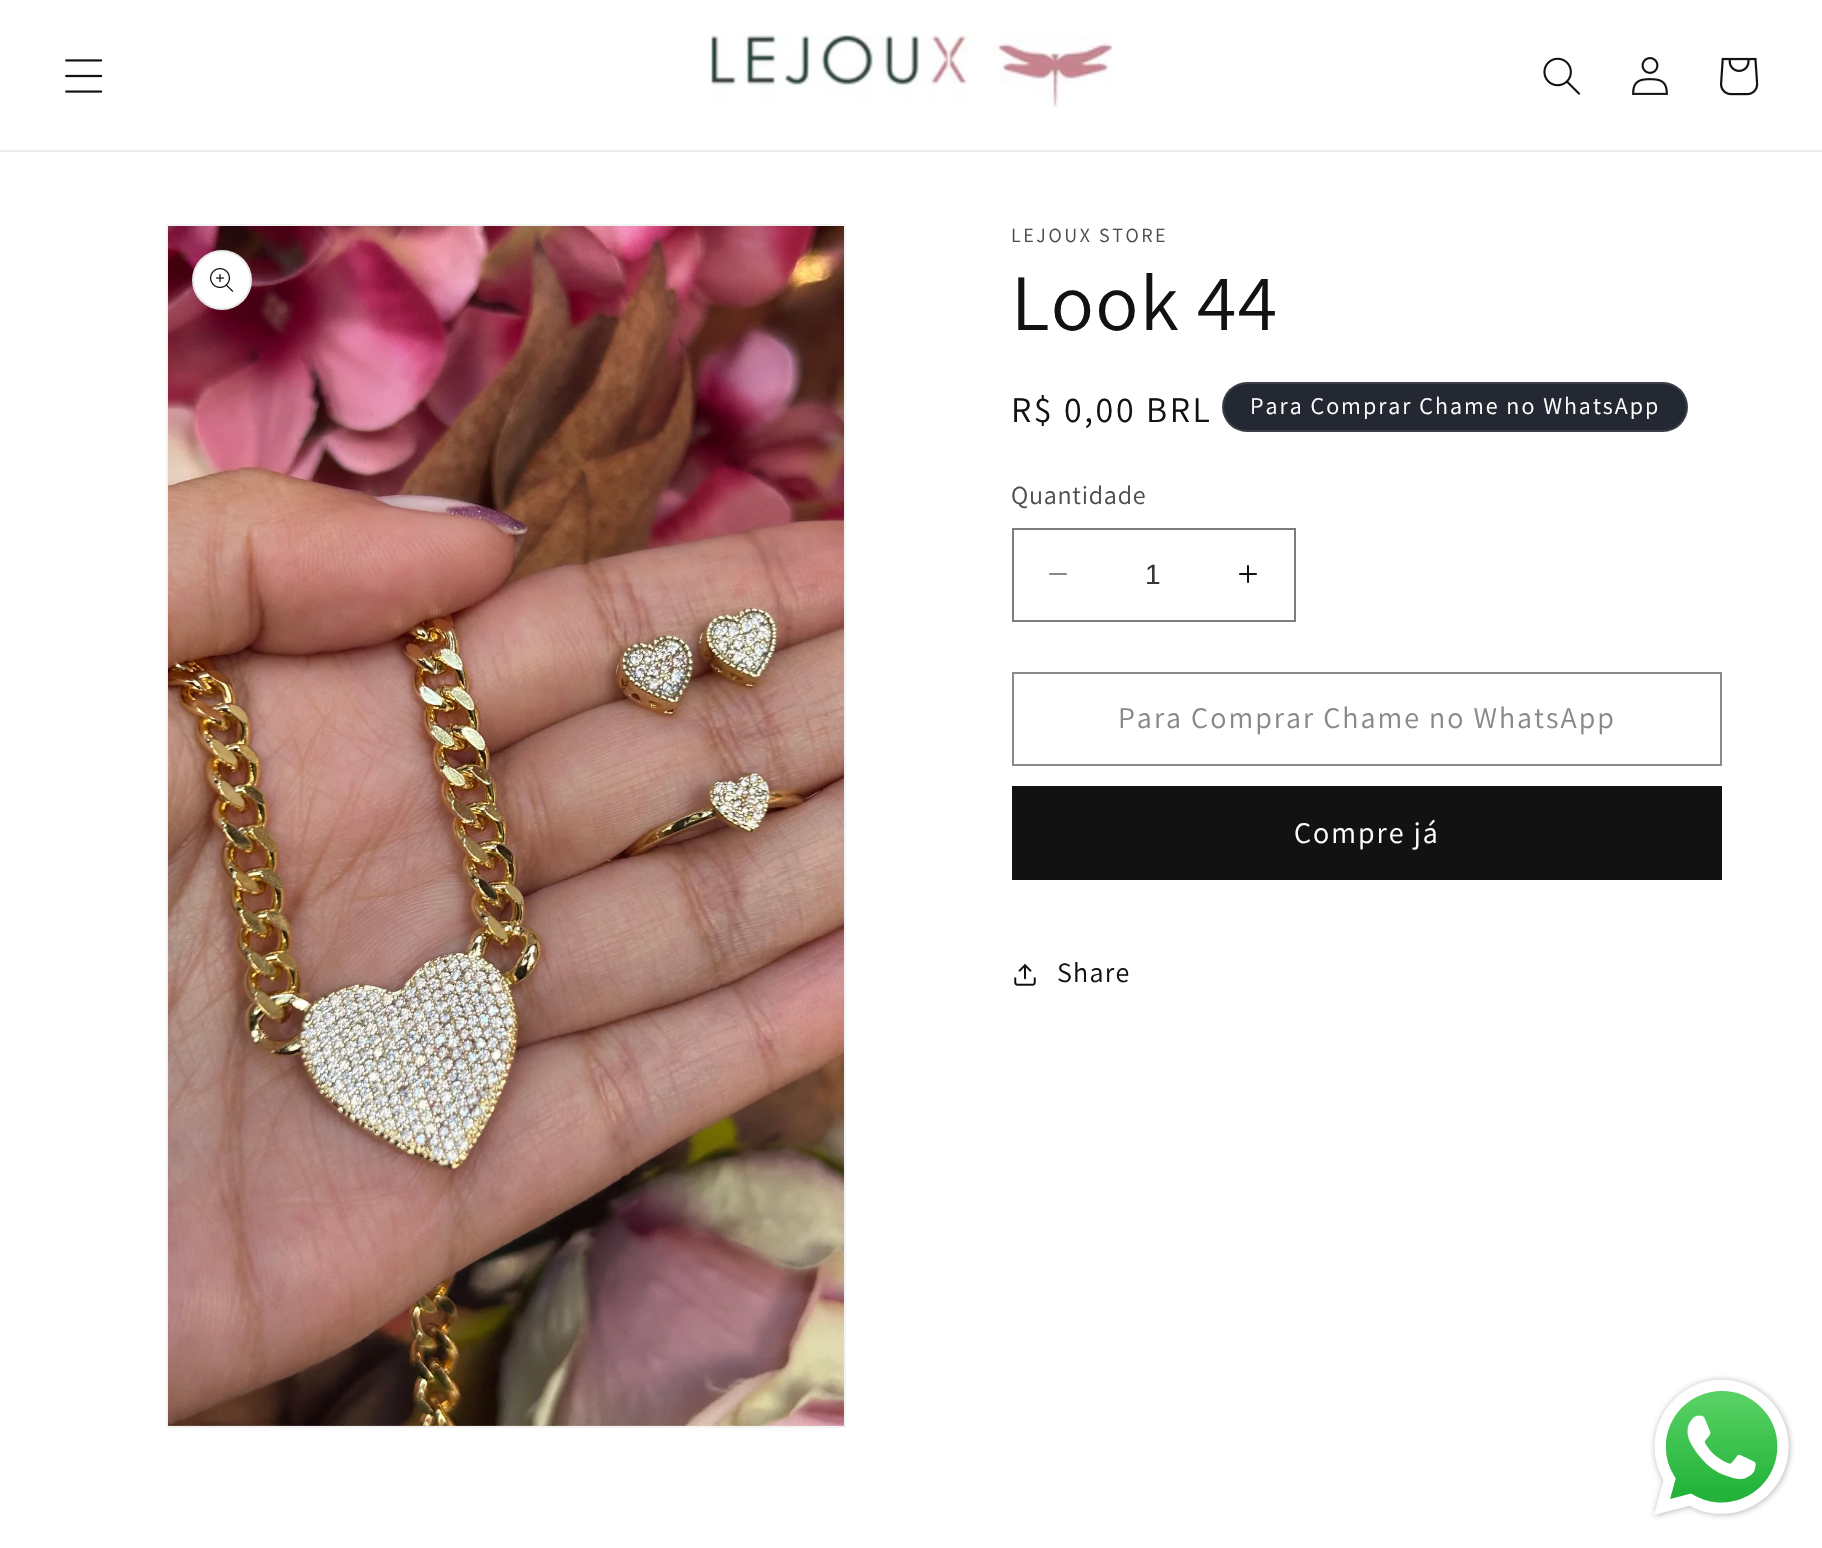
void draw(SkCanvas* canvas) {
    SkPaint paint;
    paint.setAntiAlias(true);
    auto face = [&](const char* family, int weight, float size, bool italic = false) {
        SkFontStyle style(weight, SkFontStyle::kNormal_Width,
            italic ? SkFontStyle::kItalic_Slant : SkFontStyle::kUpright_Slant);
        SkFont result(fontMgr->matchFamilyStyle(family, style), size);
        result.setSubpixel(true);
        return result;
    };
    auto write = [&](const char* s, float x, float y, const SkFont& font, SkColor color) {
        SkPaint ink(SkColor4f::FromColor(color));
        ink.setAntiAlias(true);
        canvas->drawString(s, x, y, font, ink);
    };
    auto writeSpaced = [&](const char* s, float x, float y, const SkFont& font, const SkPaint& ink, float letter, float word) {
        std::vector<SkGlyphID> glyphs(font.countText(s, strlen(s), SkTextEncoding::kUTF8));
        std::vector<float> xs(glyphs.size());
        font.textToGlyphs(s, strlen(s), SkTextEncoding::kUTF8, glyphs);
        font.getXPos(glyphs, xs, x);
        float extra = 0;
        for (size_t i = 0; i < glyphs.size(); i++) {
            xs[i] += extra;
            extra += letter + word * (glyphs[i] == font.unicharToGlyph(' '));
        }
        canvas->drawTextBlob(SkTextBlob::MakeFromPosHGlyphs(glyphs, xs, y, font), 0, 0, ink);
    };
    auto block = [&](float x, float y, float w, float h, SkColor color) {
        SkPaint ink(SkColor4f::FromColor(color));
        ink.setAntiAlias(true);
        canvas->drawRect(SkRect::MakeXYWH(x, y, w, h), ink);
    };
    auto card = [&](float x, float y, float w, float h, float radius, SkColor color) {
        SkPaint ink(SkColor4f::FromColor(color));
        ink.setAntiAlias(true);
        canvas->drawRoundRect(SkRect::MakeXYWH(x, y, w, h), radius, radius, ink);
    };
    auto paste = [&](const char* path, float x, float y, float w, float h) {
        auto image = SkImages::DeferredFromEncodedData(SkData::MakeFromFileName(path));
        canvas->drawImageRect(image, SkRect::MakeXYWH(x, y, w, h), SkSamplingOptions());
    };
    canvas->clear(SK_ColorWHITE);
    block(0, 150, 1822, 2, SkColorSetRGB(236, 236, 236));
    paste("pic1.png", 65, 59, 38, 34);
    paste("pic2.png", 711, 35, 401, 73);
    paste("pic3.png", 1543, 57, 37, 38);
    paste("pic4.png", 1632, 57, 36, 38);
    paste("pic5.png", 1720, 57, 39, 39);
    paint.setStyle(SkPaint::kStroke_Style);
    paint.setStrokeWidth(2);
    paint.setColor(SkColorSetRGB(243, 243, 243));
    canvas->drawRect(SkRect::MakeXYWH(167, 225, 678, 1202), paint);
    paste("pic6.png", 168, 226, 676, 1200);
    paint.setStyle(SkPaint::kFill_Style);
    paint.setColor(SK_ColorWHITE);
    canvas->drawCircle(222, 280, 30, paint);
    paint.setStyle(SkPaint::kStroke_Style);
    paint.setColor(SkColorSetARGB(26, 18, 18, 18));
    canvas->drawCircle(222, 280, 29, paint);
    paste("pic7.png", 210, 268, 24, 24);
    auto kFont1 = face("Assistant", 400, 20);
    paint.setStyle(SkPaint::kFill_Style);
    paint.setColor(SkColorSetRGB(77, 77, 77));
    writeSpaced("LEJOUX STORE", 1011, 242, kFont1, paint, 2.6f, 0);
    auto kFont2 = face("Assistant", 400, 80);
    paint.setColor(SkColorSetRGB(18, 18, 18));
    writeSpaced("Look 44", 1011, 330, kFont2, paint, 1.25f, 0);
    auto kFont3 = face("Assistant", 400, 36);
    writeSpaced("R$ 0,00 BRL", 1011, 422, kFont3, paint, 2.6f, 0);
    card(1222, 382, 466, 50, 25, SkColorSetRGB(36, 40, 51));
    paint.setStyle(SkPaint::kStroke_Style);
    paint.setColor(SkColorSetARGB(26, 255, 255, 255));
    canvas->drawRoundRect(SkRect::MakeXYWH(1223, 383, 464, 48), 24, 24, paint);
    auto kFont4 = face("Assistant", 400, 24);
    paint.setStyle(SkPaint::kFill_Style);
    paint.setColor(SK_ColorWHITE);
    writeSpaced("Para Comprar Chame no WhatsApp", 1250, 414, kFont4, paint, 2, 0);
    auto kFont5 = face("Assistant", 400, 26);
    paint.setColor(SkColorSetRGB(77, 77, 77));
    writeSpaced("Quantidade", 1011, 504, kFont5, paint, 0.75f, 0);
    paste("pic8.png", 1049, 573, 18, 2);
    paste("pic9.png", 1239, 565, 18, 18);
    paint.setStyle(SkPaint::kStroke_Style);
    paint.setColor(SkColorSetRGB(125, 125, 125));
    canvas->drawRect(SkRect::MakeXYWH(1013, 529, 282, 92), paint);
    auto kFont6 = face("Liberation Sans", 400, 28);
    write("1", 1145, 584, kFont6, SkColorSetRGB(54, 54, 54));
    paint.setColor(SkColorSetRGB(137, 137, 137));
    canvas->drawRect(SkRect::MakeXYWH(1013, 673, 708, 92), paint);
    auto kFont7 = face("Assistant", 400, 30);
    paint.setStyle(SkPaint::kFill_Style);
    writeSpaced("Para Comprar Chame no WhatsApp", 1118, 728, kFont7, paint, 2, 0);
    block(1012, 786, 710, 94, SkColorSetRGB(18, 18, 18));
    paint.setColor(SK_ColorWHITE);
    writeSpaced("Compre já", 1294, 843, kFont7, paint, 2, 0);
    paste("pic10.png", 1014, 964, 22, 22);
    auto kFont8 = face("Assistant", 400, 28);
    paint.setColor(SkColorSetRGB(18, 18, 18));
    writeSpaced("Share", 1057, 982, kFont8, paint, 1.25f, 0);
    paste("pic11.png", 1650, 1375, 145, 145);
}
